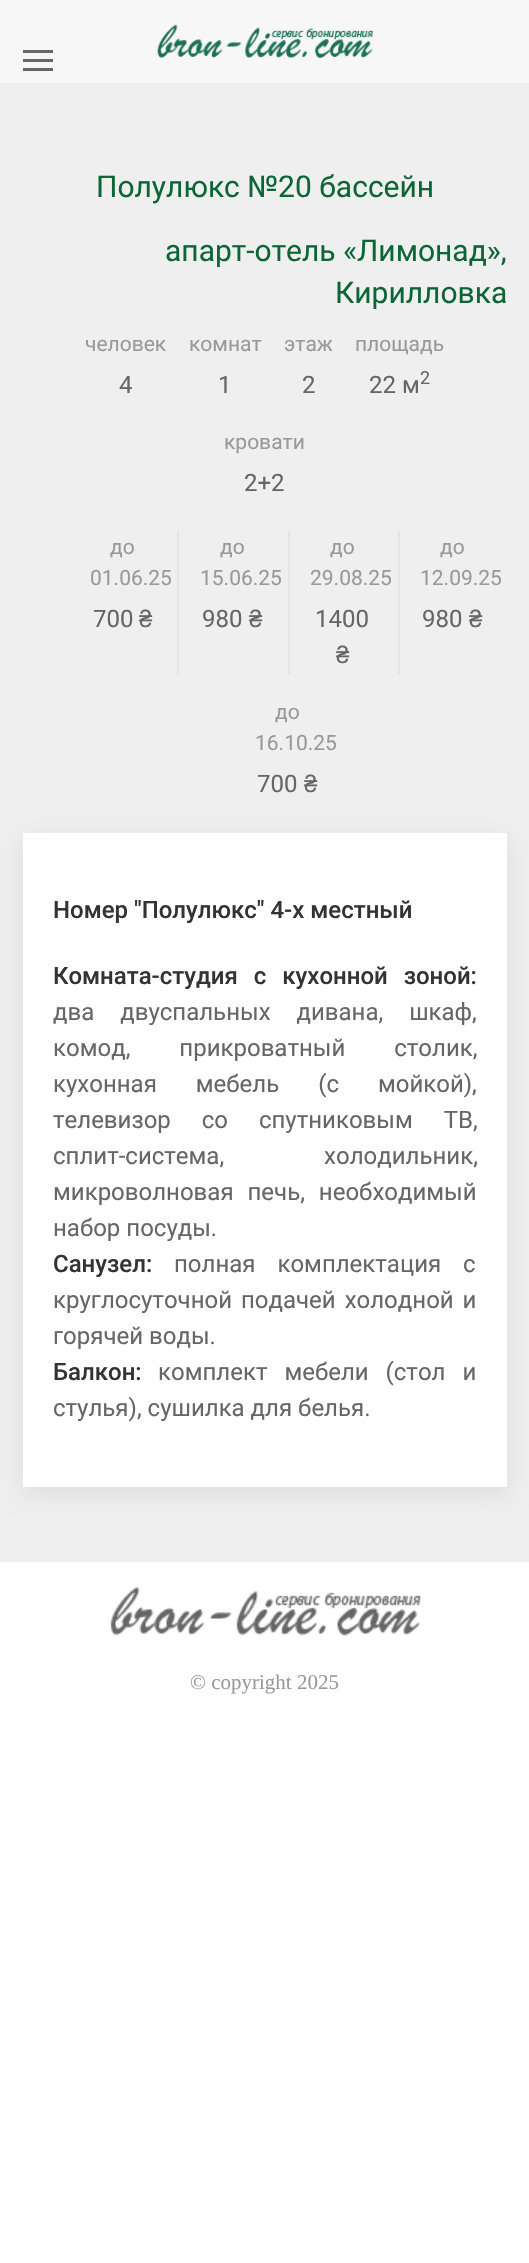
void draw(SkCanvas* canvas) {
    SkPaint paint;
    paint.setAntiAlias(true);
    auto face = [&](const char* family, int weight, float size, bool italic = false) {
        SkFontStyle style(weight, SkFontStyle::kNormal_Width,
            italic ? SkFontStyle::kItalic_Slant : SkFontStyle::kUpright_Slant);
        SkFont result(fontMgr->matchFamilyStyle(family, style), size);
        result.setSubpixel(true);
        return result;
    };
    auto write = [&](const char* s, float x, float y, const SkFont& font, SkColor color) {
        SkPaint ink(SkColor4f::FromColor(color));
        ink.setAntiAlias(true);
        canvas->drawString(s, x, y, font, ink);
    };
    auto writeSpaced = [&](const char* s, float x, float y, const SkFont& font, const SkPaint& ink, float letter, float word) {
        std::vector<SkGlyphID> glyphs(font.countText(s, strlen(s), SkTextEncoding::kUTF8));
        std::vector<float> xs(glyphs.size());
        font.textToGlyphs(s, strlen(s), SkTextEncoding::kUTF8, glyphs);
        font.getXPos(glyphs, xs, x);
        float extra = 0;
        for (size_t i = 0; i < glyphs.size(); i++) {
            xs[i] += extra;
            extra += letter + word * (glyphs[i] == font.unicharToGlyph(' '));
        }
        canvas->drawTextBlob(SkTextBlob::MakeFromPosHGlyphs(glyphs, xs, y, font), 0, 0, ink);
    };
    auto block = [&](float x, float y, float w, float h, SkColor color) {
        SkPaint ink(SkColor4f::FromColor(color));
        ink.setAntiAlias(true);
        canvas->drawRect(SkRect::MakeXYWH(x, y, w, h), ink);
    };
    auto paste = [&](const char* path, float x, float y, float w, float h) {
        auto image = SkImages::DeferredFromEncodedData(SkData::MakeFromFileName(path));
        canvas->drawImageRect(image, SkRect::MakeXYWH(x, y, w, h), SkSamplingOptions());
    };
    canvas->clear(SK_ColorWHITE);
    block(0, 0, 529, 83, SkColorSetRGB(247, 247, 247));
    paste("pic1.png", 157, 24, 217, 34);
    block(23, 50, 30, 3, SkColorSetRGB(102, 102, 102));
    block(23, 59, 30, 3, SkColorSetRGB(102, 102, 102));
    block(23, 68, 30, 3, SkColorSetRGB(102, 102, 102));
    block(0, 83, 529, 1479, SkColorSetRGB(239, 239, 239));
    auto kFont1 = face("Roboto", 400, 30);
    write("Полулюкс №20 бассейн", 96, 197, kFont1, SkColorSetRGB(11, 101, 53));
    write("апарт-отель «Лимонад»,", 165, 261, kFont1, SkColorSetRGB(11, 101, 53));
    write("Кирилловка", 335, 303, kFont1, SkColorSetRGB(11, 101, 53));
    auto kFont2 = face("Roboto", 400, 21);
    write("человек", 85, 351, kFont2, SkColorSetRGB(153, 153, 153));
    auto kFont3 = face("Roboto", 400, 24);
    write("4", 119, 393, kFont3, SkColorSetRGB(102, 102, 102));
    write("комнат", 189, 351, kFont2, SkColorSetRGB(153, 153, 153));
    write("1", 218, 393, kFont3, SkColorSetRGB(102, 102, 102));
    write("этаж", 284, 351, kFont2, SkColorSetRGB(153, 153, 153));
    write("2", 302, 393, kFont3, SkColorSetRGB(102, 102, 102));
    write("площадь", 355, 351, kFont2, SkColorSetRGB(153, 153, 153));
    write("22 м", 369, 393, kFont3, SkColorSetRGB(102, 102, 102));
    auto kFont4 = face("Roboto", 400, 18);
    write("2", 420, 384, kFont4, SkColorSetRGB(102, 102, 102));
    write("кровати", 224, 449, kFont2, SkColorSetRGB(153, 153, 153));
    write("2+2", 244, 491, kFont3, SkColorSetRGB(102, 102, 102));
    write("до", 110, 554, kFont2, SkColorSetRGB(153, 153, 153));
    write("01.06.25", 90, 585, kFont2, SkColorSetRGB(153, 153, 153));
    write("700", 93, 627, kFont3, SkColorSetRGB(102, 102, 102));
    auto kFont5 = face("Liberation Sans", 400, 24);
    write("₴", 139, 627, kFont5, SkColorSetRGB(102, 102, 102));
    block(177, 531, 2, 143, SkColorSetRGB(229, 229, 229));
    write("до", 220, 554, kFont2, SkColorSetRGB(153, 153, 153));
    write("15.06.25", 200, 585, kFont2, SkColorSetRGB(153, 153, 153));
    write("980", 202, 627, kFont3, SkColorSetRGB(102, 102, 102));
    write("₴", 249, 627, kFont5, SkColorSetRGB(102, 102, 102));
    block(288, 531, 2, 143, SkColorSetRGB(229, 229, 229));
    write("до", 330, 554, kFont2, SkColorSetRGB(153, 153, 153));
    write("29.08.25", 310, 585, kFont2, SkColorSetRGB(153, 153, 153));
    write("1400", 315, 627, kFont3, SkColorSetRGB(102, 102, 102));
    write("₴", 336, 663, kFont5, SkColorSetRGB(102, 102, 102));
    block(398, 531, 2, 143, SkColorSetRGB(229, 229, 229));
    write("до", 440, 554, kFont2, SkColorSetRGB(153, 153, 153));
    write("12.09.25", 420, 585, kFont2, SkColorSetRGB(153, 153, 153));
    write("980", 422, 627, kFont3, SkColorSetRGB(102, 102, 102));
    write("₴", 469, 627, kFont5, SkColorSetRGB(102, 102, 102));
    write("до", 275, 719, kFont2, SkColorSetRGB(153, 153, 153));
    write("16.10.25", 255, 750, kFont2, SkColorSetRGB(153, 153, 153));
    write("700", 257, 792, kFont3, SkColorSetRGB(102, 102, 102));
    write("₴", 304, 792, kFont5, SkColorSetRGB(102, 102, 102));
    paint.setColor(SkColorSetARGB(20, 0, 0, 0));
    paint.setMaskFilter(SkMaskFilter::MakeBlur(kNormal_SkBlurStyle, 11));
    canvas->drawRect(SkRect::MakeXYWH(23, 840, 484, 654), paint);
    paint.setMaskFilter(nullptr);
    block(23, 833, 484, 654, SK_ColorWHITE);
    auto kFont6 = face("Roboto", 500, 24);
    write("Номер \"Полулюкс\" 4-х местный", 53, 918, kFont6, SkColorSetRGB(51, 51, 51));
    paint.setColor(SkColorSetRGB(51, 51, 51));
    writeSpaced("Комната-студия с кухонной зоной:", 53, 984, kFont6, paint, 0, 10);
    paint.setColor(SkColorSetRGB(102, 102, 102));
    writeSpaced("два двуспальных дивана, шкаф,", 53, 1020, kFont3, paint, 0, 20);
    writeSpaced("комод, прикроватный столик,", 53, 1056, kFont3, paint, 0, 43);
    writeSpaced("кухонная мебель (с мойкой),", 53, 1092, kFont3, paint, 0, 33);
    writeSpaced("телевизор со спутниковым ТВ,", 53, 1128, kFont3, paint, 0, 25);
    writeSpaced("сплит-система, холодильник,", 53, 1164, kFont3, paint, 0, 94);
    writeSpaced("микроволновая печь, необходимый", 53, 1200, kFont3, paint, 0, 8);
    write("набор посуды.", 53, 1236, kFont3, SkColorSetRGB(102, 102, 102));
    write("Санузел:", 53, 1272, kFont6, SkColorSetRGB(51, 51, 51));
    writeSpaced("полная комплектация с", 174, 1272, kFont3, paint, 0, 16);
    writeSpaced("круглосуточной подачей холодной и", 53, 1308, kFont3, paint, 0, 3);
    write("горячей воды.", 53, 1344, kFont3, SkColorSetRGB(102, 102, 102));
    write("Балкон:", 53, 1380, kFont6, SkColorSetRGB(51, 51, 51));
    writeSpaced("комплект мебели (стол и", 158, 1380, kFont3, paint, 0, 11);
    write("стулья), сушилка для белья.", 53, 1416, kFont3, SkColorSetRGB(102, 102, 102));
    paste("pic2.png", 110, 1586, 311, 50);
    auto kFont7 = face("Liberation Serif", 400, 21);
    write("© copyright 2025", 190, 1689, kFont7, SkColorSetRGB(153, 153, 153));
}
